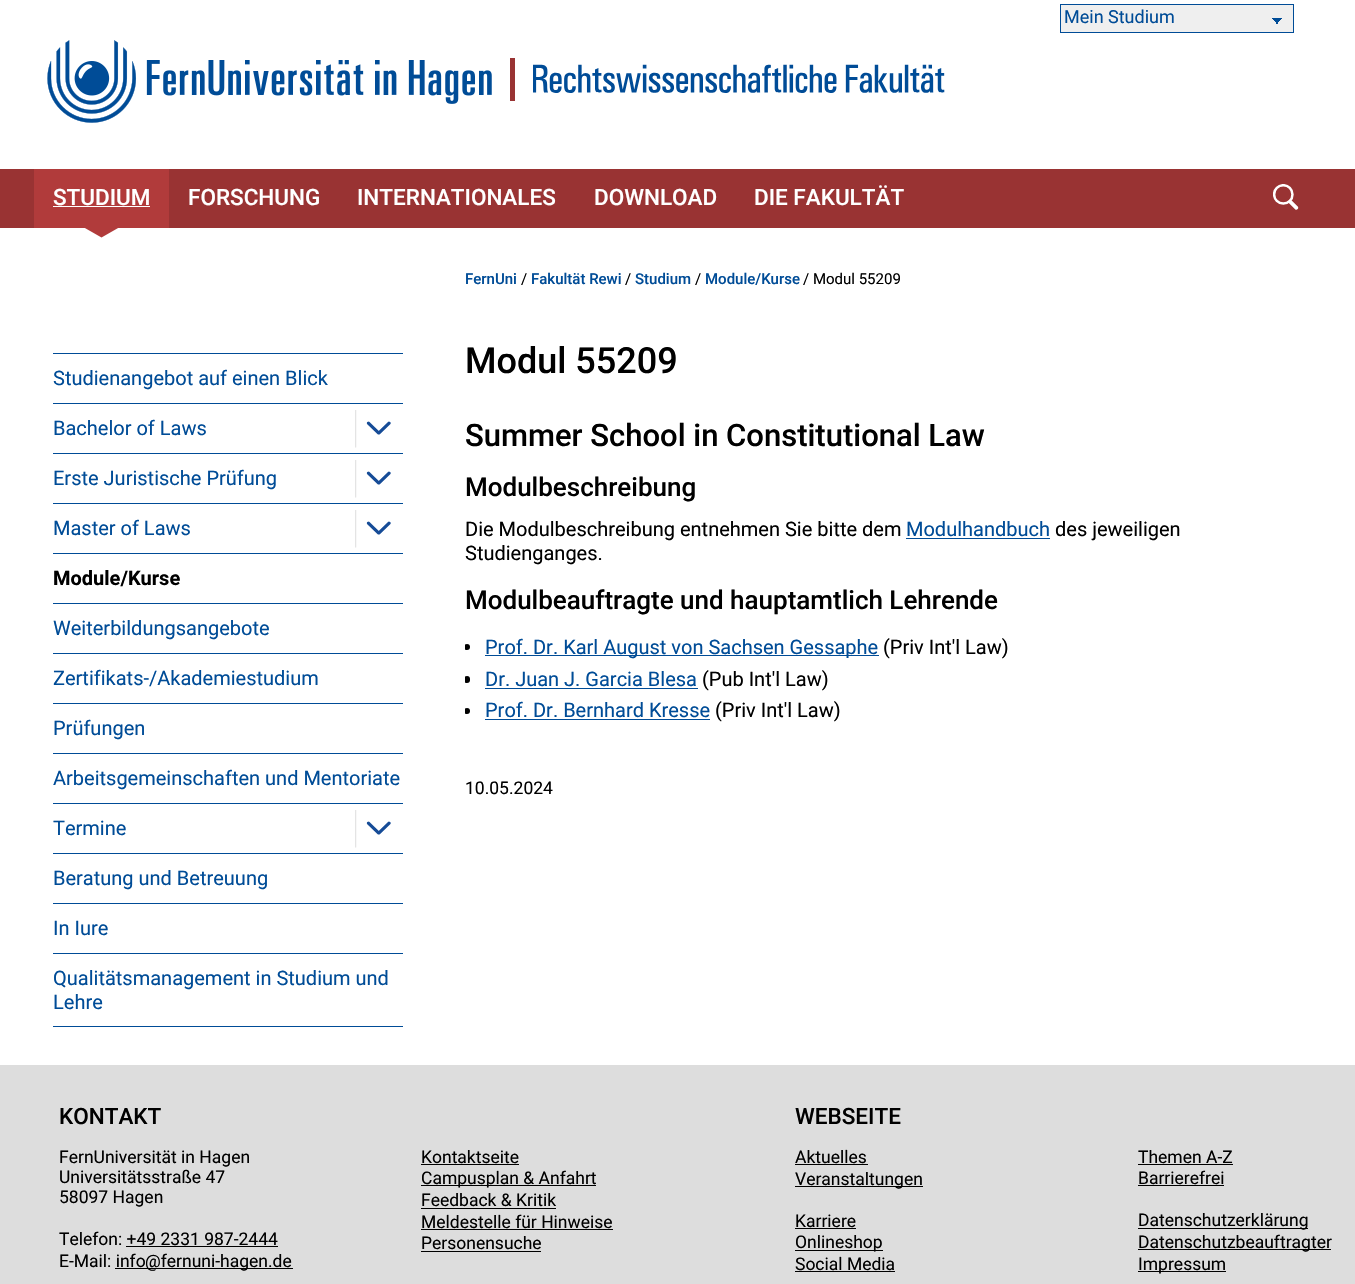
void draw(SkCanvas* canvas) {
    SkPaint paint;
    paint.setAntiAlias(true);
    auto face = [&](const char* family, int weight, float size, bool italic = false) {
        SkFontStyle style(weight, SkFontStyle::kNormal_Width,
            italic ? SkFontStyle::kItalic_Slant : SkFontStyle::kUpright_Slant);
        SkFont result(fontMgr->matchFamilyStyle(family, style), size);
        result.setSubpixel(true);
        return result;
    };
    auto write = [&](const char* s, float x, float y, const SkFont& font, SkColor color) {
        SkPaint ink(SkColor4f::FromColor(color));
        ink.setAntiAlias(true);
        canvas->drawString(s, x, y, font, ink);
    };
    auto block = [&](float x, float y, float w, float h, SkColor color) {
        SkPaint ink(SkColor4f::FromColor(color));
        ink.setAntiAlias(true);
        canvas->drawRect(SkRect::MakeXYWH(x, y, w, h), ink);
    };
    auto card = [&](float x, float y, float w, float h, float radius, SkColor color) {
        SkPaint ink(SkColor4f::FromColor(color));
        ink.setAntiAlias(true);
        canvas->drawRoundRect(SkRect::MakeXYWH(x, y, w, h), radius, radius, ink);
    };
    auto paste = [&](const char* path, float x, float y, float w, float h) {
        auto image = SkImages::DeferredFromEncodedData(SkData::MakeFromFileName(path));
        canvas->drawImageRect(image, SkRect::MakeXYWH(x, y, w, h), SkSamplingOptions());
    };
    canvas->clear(SK_ColorWHITE);
    block(0, 169, 1355, 59, SkColorSetRGB(153, 51, 51));
    block(1061, 5, 232, 27, SkColorSetRGB(239, 239, 239));
    {
        const SkColor colors[] = {SkColorSetRGB(0, 76, 151), SkColorSetRGB(239, 239, 239)};
        const float stops[] = {0.5f, 0.5f};
        const SkPoint ends[] = {{1276, 18}, {1283, 24}};
        paint.setShader(SkGradientShader::MakeLinear(ends, colors, stops, 2, SkTileMode::kClamp));
        paint.setAlpha(255);
    }
    canvas->drawRect(SkRect::MakeXYWH(1276, 18, 7, 6), paint);
    {
        const SkColor colors[] = {SkColorSetARGB(0, 0, 76, 151), SkColorSetRGB(0, 76, 151)};
        const float stops[] = {0.5f, 0.5f};
        const SkPoint ends[] = {{1271, 24}, {1278, 18}};
        paint.setShader(SkGradientShader::MakeLinear(ends, colors, stops, 2, SkTileMode::kClamp));
        paint.setAlpha(255);
    }
    canvas->drawRect(SkRect::MakeXYWH(1271, 18, 7, 6), paint);
    paint.setStyle(SkPaint::kStroke_Style);
    paint.setStrokeWidth(1);
    paint.setShader(nullptr);
    paint.setColor(SkColorSetRGB(0, 76, 151));
    canvas->drawRect(SkRect::MakeXYWH(1060.5f, 4.5f, 233, 28), paint);
    auto kFont1 = face("Roboto", 400, 18);
    write("Mein Studium", 1064, 23, kFont1, SkColorSetRGB(0, 76, 151));
    block(34, 169, 135, 59, SkColorSetRGB(177, 59, 59));
    auto kFont2 = face("Roboto", 500, 22.5f);
    write("STUDIUM", 53, 205, kFont2, SK_ColorWHITE);
    block(53, 206, 97, 1, SK_ColorWHITE);
    paint.setStyle(SkPaint::kFill_Style);
    paint.setColor(SkColorSetRGB(177, 59, 59));
    canvas->drawPath(SkPathBuilder().moveTo(84, 227.5f).lineTo(119, 227.5f).lineTo(101.5f, 237.5f).close().detach(), paint);
    write("FORSCHUNG", 188, 205, kFont2, SK_ColorWHITE);
    write("INTERNATIONALES", 357, 205, kFont2, SK_ColorWHITE);
    write("DOWNLOAD", 594, 205, kFont2, SK_ColorWHITE);
    write("DIE FAKULTÄT", 754, 205, kFont2, SK_ColorWHITE);
    paste("pic1.png", 1273, 184, 26, 26);
    paste("pic2.png", 47, 40, 445, 83);
    block(510, 58, 5, 43, SkColorSetRGB(153, 51, 51));
    paste("pic3.png", 533, 64, 412, 29);
    block(53, 1026, 350, 1, SkColorSetRGB(0, 76, 151));
    block(53, 353, 350, 1, SkColorSetRGB(0, 76, 151));
    auto kFont3 = face("Roboto", 400, 20);
    write("Studienangebot auf einen Blick", 53, 385, kFont3, SkColorSetRGB(0, 76, 151));
    block(53, 403, 350, 1, SkColorSetRGB(0, 76, 151));
    write("Bachelor of Laws", 53, 435, kFont3, SkColorSetRGB(0, 76, 151));
    paste("pic4.png", 355, 410, 2, 38);
    paste("pic5.png", 366, 421, 25, 14);
    block(53, 453, 350, 1, SkColorSetRGB(0, 76, 151));
    write("Erste Juristische Prüfung", 53, 485, kFont3, SkColorSetRGB(0, 76, 151));
    paste("pic4.png", 355, 460, 2, 38);
    paste("pic5.png", 366, 471, 25, 14);
    block(53, 503, 350, 1, SkColorSetRGB(0, 76, 151));
    write("Master of Laws", 53, 535, kFont3, SkColorSetRGB(0, 76, 151));
    paste("pic4.png", 355, 510, 2, 38);
    paste("pic5.png", 366, 521, 25, 14);
    block(53, 553, 350, 1, SkColorSetRGB(0, 76, 151));
    auto kFont4 = face("Roboto", 700, 20);
    write("Module/Kurse", 53, 585, kFont4, SK_ColorBLACK);
    block(53, 603, 350, 1, SkColorSetRGB(0, 76, 151));
    write("Weiterbildungsangebote", 53, 635, kFont3, SkColorSetRGB(0, 76, 151));
    block(53, 653, 350, 1, SkColorSetRGB(0, 76, 151));
    write("Zertifikats-/Akademiestudium", 53, 685, kFont3, SkColorSetRGB(0, 76, 151));
    block(53, 703, 350, 1, SkColorSetRGB(0, 76, 151));
    write("Prüfungen", 53, 735, kFont3, SkColorSetRGB(0, 76, 151));
    block(53, 753, 350, 1, SkColorSetRGB(0, 76, 151));
    write("Arbeitsgemeinschaften und Mentoriate", 53, 785, kFont3, SkColorSetRGB(0, 76, 151));
    block(53, 803, 350, 1, SkColorSetRGB(0, 76, 151));
    write("Termine", 53, 835, kFont3, SkColorSetRGB(0, 76, 151));
    paste("pic4.png", 355, 810, 2, 38);
    paste("pic5.png", 366, 821, 25, 14);
    block(53, 853, 350, 1, SkColorSetRGB(0, 76, 151));
    write("Beratung und Betreuung", 53, 885, kFont3, SkColorSetRGB(0, 76, 151));
    block(53, 903, 350, 1, SkColorSetRGB(0, 76, 151));
    write("In Iure", 53, 935, kFont3, SkColorSetRGB(0, 76, 151));
    block(53, 953, 350, 1, SkColorSetRGB(0, 76, 151));
    write("Qualitätsmanagement in Studium und", 53, 985, kFont3, SkColorSetRGB(0, 76, 151));
    write("Lehre", 53, 1009, kFont3, SkColorSetRGB(0, 76, 151));
    auto kFont5 = face("Roboto", 500, 15);
    write("FernUni", 465, 284, kFont5, SkColorSetRGB(0, 76, 151));
    auto kFont6 = face("Roboto", 400, 15);
    write("/", 521, 284, kFont6, SK_ColorBLACK);
    write("Fakultät Rewi", 531, 284, kFont5, SkColorSetRGB(0, 76, 151));
    write("/", 625, 284, kFont6, SK_ColorBLACK);
    write("Studium", 635, 284, kFont5, SkColorSetRGB(0, 76, 151));
    write("/", 695, 284, kFont6, SK_ColorBLACK);
    write("Module/Kurse", 705, 284, kFont5, SkColorSetRGB(0, 76, 151));
    write("/ Modul 55209", 803, 284, kFont6, SK_ColorBLACK);
    auto kFont7 = face("Roboto", 500, 36);
    write("Modul 55209", 465, 373, kFont7, SK_ColorBLACK);
    auto kFont8 = face("Roboto", 500, 31);
    write("Summer School in Constitutional Law", 465, 446, kFont8, SK_ColorBLACK);
    auto kFont9 = face("Roboto", 500, 26);
    write("Modulbeschreibung", 465, 496, kFont9, SK_ColorBLACK);
    write("Die Modulbeschreibung entnehmen Sie bitte dem", 465, 536, kFont3, SK_ColorBLACK);
    write("Modulhandbuch", 906, 536, kFont3, SkColorSetRGB(0, 76, 151));
    block(906, 538, 144, 1, SkColorSetRGB(0, 76, 151));
    write("des jeweiligen", 1055, 536, kFont3, SK_ColorBLACK);
    write("Studienganges.", 465, 560, kFont3, SK_ColorBLACK);
    write("Modulbeauftragte und hauptamtlich Lehrende", 465, 609, kFont9, SK_ColorBLACK);
    canvas->save();
    canvas->clipRect(SkRect::MakeXYWH(465, 265, 838, 533));
    paint.setColor(SK_ColorBLACK);
    canvas->drawCircle(467, 647, 3, paint);
    canvas->restore();
    block(485, 655, 394, 1, SkColorSetRGB(0, 76, 151));
    write("Prof. Dr. Karl August von Sachsen Gessaphe", 485, 654, kFont3, SkColorSetRGB(0, 76, 151));
    write("(Priv Int'l Law)", 883, 654, kFont3, SK_ColorBLACK);
    canvas->save();
    canvas->clipRect(SkRect::MakeXYWH(465, 265, 838, 533));
    card(464, 676, 6, 7, 3, SK_ColorBLACK);
    canvas->restore();
    write("Dr. Juan J. Garcia Blesa", 485, 686, kFont3, SkColorSetRGB(0, 76, 151));
    block(485, 688, 213, 1, SkColorSetRGB(0, 76, 151));
    write("(Pub Int'l Law)", 702, 686, kFont3, SK_ColorBLACK);
    canvas->save();
    canvas->clipRect(SkRect::MakeXYWH(465, 265, 838, 533));
    canvas->drawCircle(467, 711, 3, paint);
    canvas->restore();
    write("Prof. Dr. Bernhard Kresse", 485, 717, kFont3, SkColorSetRGB(0, 76, 151));
    block(485, 719, 225, 1, SkColorSetRGB(0, 76, 151));
    write("(Priv Int'l Law)", 715, 717, kFont3, SK_ColorBLACK);
    auto kFont10 = face("Roboto", 400, 17.5f);
    write("10.05.2024", 465, 794, kFont10, SK_ColorBLACK);
    block(0, 1065, 1355, 219, SkColorSetRGB(221, 221, 221));
    write("KONTAKT", 59, 1124, kFont2, SK_ColorBLACK);
    write("FernUniversität in Hagen", 59, 1163, kFont10, SK_ColorBLACK);
    write("Universitätsstraße 47", 59, 1183, kFont10, SK_ColorBLACK);
    write("58097 Hagen", 59, 1203, kFont10, SK_ColorBLACK);
    write("Telefon: +49 2331 987-2444", 59, 1245, kFont10, SK_ColorBLACK);
    block(126, 1246, 152, 1, SK_ColorBLACK);
    write("E-Mail: info", 59, 1267, kFont10, SK_ColorBLACK);
    block(115, 1268, 178, 1, SK_ColorBLACK);
    write("@fernuni-hagen.de", 145, 1267, kFont10, SK_ColorBLACK);
    write("Kontaktseite", 421, 1163, kFont10, SK_ColorBLACK);
    block(421, 1164, 98, 1, SK_ColorBLACK);
    block(421, 1185, 175, 1, SK_ColorBLACK);
    write("Campusplan & Anfahrt", 421, 1184, kFont10, SK_ColorBLACK);
    write("Feedback & Kritik", 421, 1206, kFont10, SK_ColorBLACK);
    block(421, 1208, 135, 1, SK_ColorBLACK);
    write("Meldestelle für Hinweise", 421, 1228, kFont10, SK_ColorBLACK);
    block(421, 1229, 192, 1, SK_ColorBLACK);
    write("Personensuche", 421, 1249, kFont10, SK_ColorBLACK);
    block(421, 1251, 120, 1, SK_ColorBLACK);
    write("WEBSEITE", 795, 1124, kFont2, SK_ColorBLACK);
    write("Aktuelles", 795, 1163, kFont10, SK_ColorBLACK);
    block(795, 1164, 73, 1, SK_ColorBLACK);
    block(795, 1186, 128, 1, SK_ColorBLACK);
    write("Veranstaltungen", 795, 1185, kFont10, SK_ColorBLACK);
    write("Karriere", 795, 1227, kFont10, SK_ColorBLACK);
    block(795, 1228, 61, 1, SK_ColorBLACK);
    block(795, 1250, 88, 1, SK_ColorBLACK);
    write("Onlineshop", 795, 1248, kFont10, SK_ColorBLACK);
    write("Social Media", 795, 1270, kFont10, SK_ColorBLACK);
    block(795, 1271, 100, 1, SK_ColorBLACK);
    write("Themen A-Z", 1138, 1163, kFont10, SK_ColorBLACK);
    block(1138, 1164, 95, 1, SK_ColorBLACK);
    write("Barrierefrei", 1138, 1184, kFont10, SK_ColorBLACK);
    block(1138, 1185, 86, 1, SK_ColorBLACK);
    block(1138, 1228, 170, 1, SK_ColorBLACK);
    write("Datenschutzerklärung", 1138, 1226, kFont10, SK_ColorBLACK);
    block(1138, 1249, 193, 1, SK_ColorBLACK);
    write("Datenschutzbeauftragter", 1138, 1248, kFont10, SK_ColorBLACK);
    block(1138, 1271, 88, 1, SK_ColorBLACK);
    write("Impressum", 1138, 1270, kFont10, SK_ColorBLACK);
}
